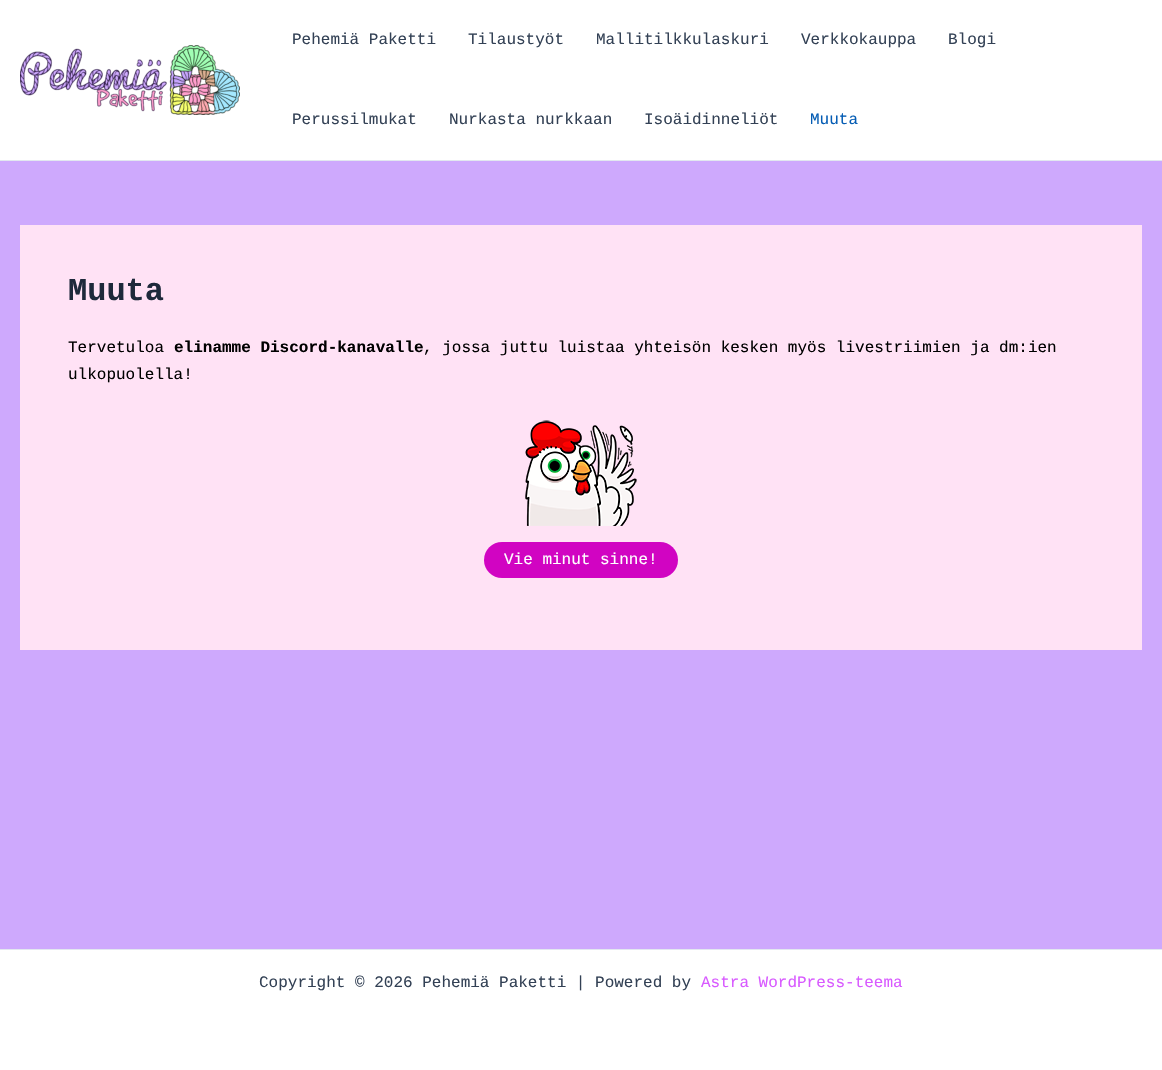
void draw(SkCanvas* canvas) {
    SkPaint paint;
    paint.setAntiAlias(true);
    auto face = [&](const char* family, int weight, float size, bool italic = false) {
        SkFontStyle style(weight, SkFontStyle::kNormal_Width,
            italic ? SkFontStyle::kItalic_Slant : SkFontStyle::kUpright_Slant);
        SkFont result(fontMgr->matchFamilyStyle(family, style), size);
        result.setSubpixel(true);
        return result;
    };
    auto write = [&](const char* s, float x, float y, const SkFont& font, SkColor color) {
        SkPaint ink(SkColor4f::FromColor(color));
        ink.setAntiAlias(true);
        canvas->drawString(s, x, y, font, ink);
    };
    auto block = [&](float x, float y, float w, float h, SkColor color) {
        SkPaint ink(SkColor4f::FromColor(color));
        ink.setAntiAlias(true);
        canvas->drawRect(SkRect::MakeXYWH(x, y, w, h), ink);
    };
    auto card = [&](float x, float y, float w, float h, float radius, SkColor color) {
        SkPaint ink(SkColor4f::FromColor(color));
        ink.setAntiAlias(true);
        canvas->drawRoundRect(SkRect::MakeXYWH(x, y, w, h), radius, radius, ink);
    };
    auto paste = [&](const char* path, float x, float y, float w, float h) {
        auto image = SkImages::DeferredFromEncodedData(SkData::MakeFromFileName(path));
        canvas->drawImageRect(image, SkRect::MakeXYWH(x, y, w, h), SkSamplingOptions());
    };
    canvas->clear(SkColorSetRGB(206, 169, 253));
    block(0, 0, 1162, 160, SK_ColorWHITE);
    block(0, 160, 1162, 1, SkColorSetRGB(226, 232, 240));
    paste("pic1.png", 20, 45, 220, 70);
    auto kFont1 = face("Liberation Mono", 400, 16);
    write("Pehemiä Paketti", 292, 44, kFont1, SkColorSetRGB(51, 65, 85));
    write("Tilaustyöt", 468, 44, kFont1, SkColorSetRGB(51, 65, 85));
    write("Mallitilkkulaskuri", 596, 44, kFont1, SkColorSetRGB(51, 65, 85));
    write("Verkkokauppa", 801, 44, kFont1, SkColorSetRGB(51, 65, 85));
    write("Blogi", 948, 44, kFont1, SkColorSetRGB(51, 65, 85));
    write("Perussilmukat", 292, 124, kFont1, SkColorSetRGB(51, 65, 85));
    write("Nurkasta nurkkaan", 449, 124, kFont1, SkColorSetRGB(51, 65, 85));
    write("Isoäidinneliöt", 644, 124, kFont1, SkColorSetRGB(51, 65, 85));
    write("Muuta", 810, 124, kFont1, SkColorSetRGB(4, 92, 180));
    block(20, 225, 1122, 425, SkColorSetRGB(255, 226, 245));
    auto kFont2 = face("Liberation Mono", 700, 32);
    write("Muuta", 68, 300, kFont2, SkColorSetRGB(30, 41, 59));
    write("Tervetuloa", 68, 352, kFont1, SK_ColorBLACK);
    auto kFont3 = face("Liberation Mono", 700, 16);
    write("elinamme Discord-kanavalle", 174, 352, kFont3, SK_ColorBLACK);
    write(", jossa juttu luistaa yhteisön kesken myös livestriimien ja dm:ien", 423, 352, kFont1, SK_ColorBLACK);
    write("ulkopuolella!", 68, 379, kFont1, SK_ColorBLACK);
    paste("pic2.png", 525, 420, 112, 106);
    card(484, 542, 194, 36, 18, SkColorSetRGB(209, 4, 194));
    write("Vie minut sinne!", 504, 564, kFont1, SK_ColorWHITE);
    block(0, 950, 1162, 120, SK_ColorWHITE);
    block(0, 949, 1162, 1, SkColorSetRGB(226, 232, 240));
    write("Copyright © 2026 Pehemiä Paketti | Powered by", 259, 987, kFont1, SkColorSetRGB(51, 65, 85));
    write("Astra WordPress-teema", 701, 987, kFont1, SkColorSetRGB(216, 90, 255));
}
